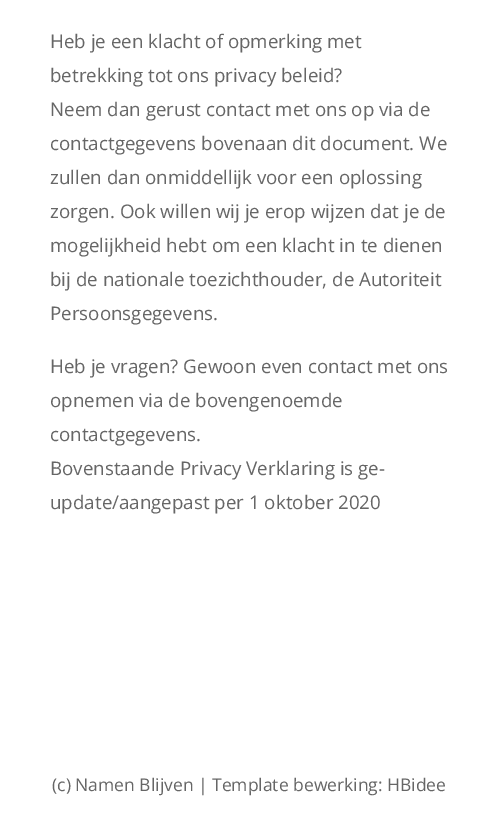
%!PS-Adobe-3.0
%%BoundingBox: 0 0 498 820
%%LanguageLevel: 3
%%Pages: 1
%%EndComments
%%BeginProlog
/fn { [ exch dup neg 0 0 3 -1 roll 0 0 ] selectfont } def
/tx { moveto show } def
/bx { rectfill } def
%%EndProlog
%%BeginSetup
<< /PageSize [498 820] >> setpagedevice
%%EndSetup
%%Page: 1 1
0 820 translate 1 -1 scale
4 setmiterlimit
1 setgray
0 0 498 820 bx
/OpenSans-Regular 18.75 fn
0.4 setgray
(Heb je een klacht of opmerking met) 50 48 tx
(betrekking tot ons privacy beleid?) 50 82 tx
(Neem dan gerust contact met ons op via de) 50 116 tx
(contactgegevens bovenaan dit document. We) 50 150 tx
(zullen dan onmiddellijk voor een oplossing) 50 184 tx
(zorgen. Ook willen wij je erop wijzen dat je de) 50 218 tx
(mogelijkheid hebt om een klacht in te dienen) 50 252 tx
(bij de nationale toezichthouder, de Autoriteit) 50 286 tx
(Persoonsgegevens.) 50 320 tx
(Heb je vragen? Gewoon even contact met ons) 50 373 tx
(opnemen via de bovengenoemde) 50 407 tx
(contactgegevens.) 50 441 tx
(Bovenstaande Privacy Verklaring is ge-) 50 475 tx
(update/aangepast per 1 oktober 2020) 50 509 tx
/OpenSans-Regular 17.5 fn
(\(c\) Namen Blijven | Template bewerking: HBidee) 52 791 tx
showpage
%%EOF
